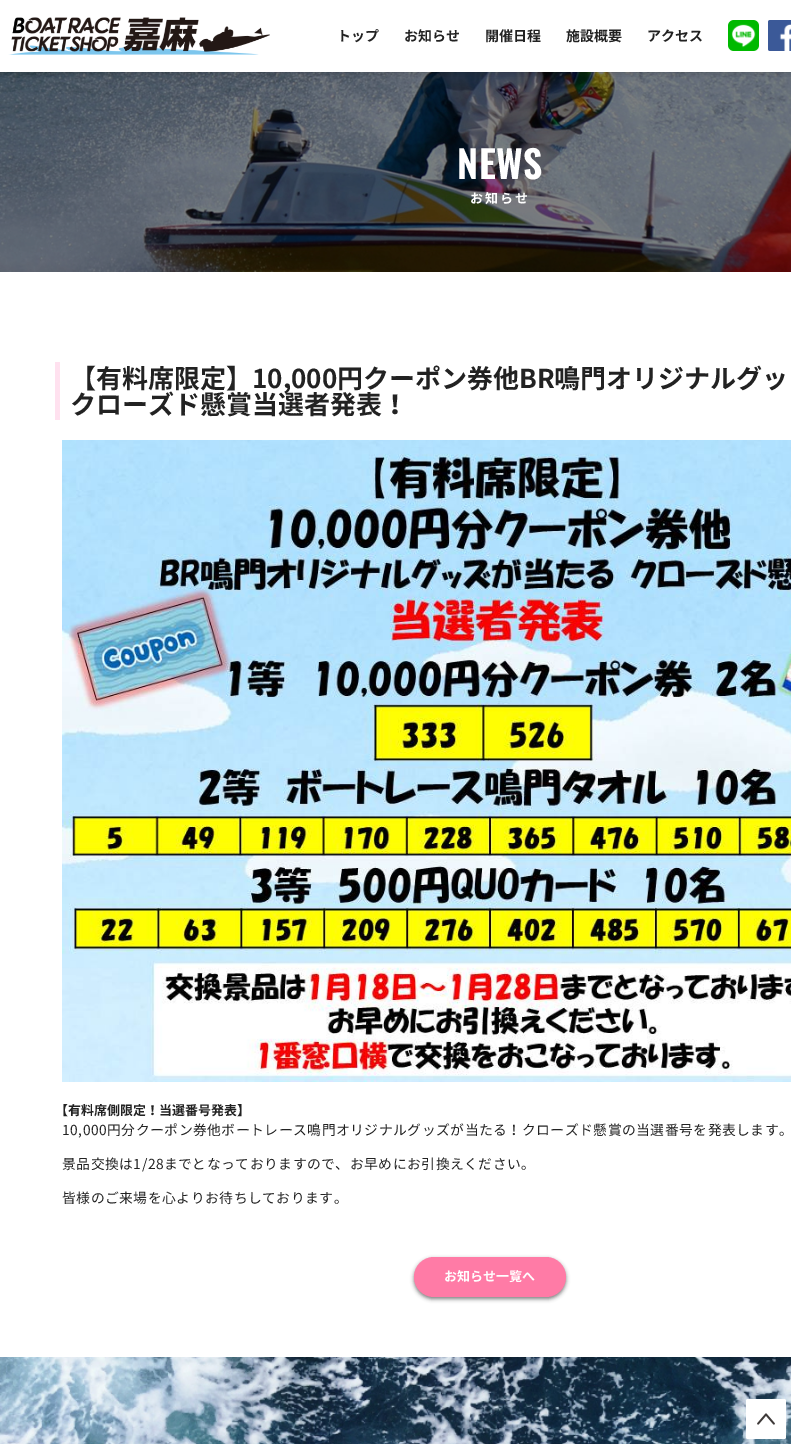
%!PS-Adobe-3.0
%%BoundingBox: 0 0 791 1444
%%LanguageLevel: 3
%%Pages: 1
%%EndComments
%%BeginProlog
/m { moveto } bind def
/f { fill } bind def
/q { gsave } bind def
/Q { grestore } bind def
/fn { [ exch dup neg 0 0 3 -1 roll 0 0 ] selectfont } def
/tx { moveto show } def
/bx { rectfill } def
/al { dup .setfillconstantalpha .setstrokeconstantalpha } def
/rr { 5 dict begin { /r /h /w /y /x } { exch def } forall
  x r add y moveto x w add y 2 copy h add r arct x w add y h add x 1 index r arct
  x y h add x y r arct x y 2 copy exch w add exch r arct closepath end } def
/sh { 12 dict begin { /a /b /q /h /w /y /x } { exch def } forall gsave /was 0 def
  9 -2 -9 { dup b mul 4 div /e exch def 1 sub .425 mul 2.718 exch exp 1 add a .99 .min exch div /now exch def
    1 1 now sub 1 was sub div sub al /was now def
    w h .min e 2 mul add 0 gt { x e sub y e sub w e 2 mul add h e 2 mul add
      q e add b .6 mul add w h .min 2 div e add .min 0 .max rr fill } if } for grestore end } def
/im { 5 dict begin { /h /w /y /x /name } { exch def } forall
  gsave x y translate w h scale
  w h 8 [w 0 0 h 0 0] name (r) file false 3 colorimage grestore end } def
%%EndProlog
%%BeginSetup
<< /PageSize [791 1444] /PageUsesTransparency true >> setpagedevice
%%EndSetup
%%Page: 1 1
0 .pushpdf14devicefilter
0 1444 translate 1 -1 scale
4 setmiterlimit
1 setgray
0 0 791 1444 bx
(image3.raw) 0 72 791 200 im
q
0 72 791 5 rectclip
0 setgray
0 0 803 72 0 4 0.2 sh
Q
(image0.raw) 8 17 262 38 im
/NotoSansCJKJP-Bold 14 fn
0.133 setgray
(トップ) 337 41 tx
(お知らせ) 404 41 tx
(開催日程) 485 41 tx
(施設概要) 566 41 tx
(アクセス) 647 41 tx
(image1.raw) 728 20 31 31 im
(image2.raw) 768 20 23 31 im
/Oswald-SemiBold 38 fn
1 setgray
457 179 m 0.5 0 (NEWS) ashow
/NotoSansCJKJP-Bold 13 fn
470 203 m 2 0 (お知らせ) ashow
1 0.882 0.937 setrgbcolor
55 362 5 58 bx
/NotoSansCJKJP-Bold 26 fn
0.133 setgray
(【有料席限定】10,000円クーポン券他BR鳴門オリジナルグッ) 70 388 tx
(クローズド懸賞当選者発表！) 70 414 tx
(image4.raw) 62 440 729 642 im
/NotoSansCJKJP-Bold 13 fn
(【有料席側限定！当選番号発表】) 55 1115 tx
/NotoSansCJKJP-Regular 13.8 fn
62 1135 m 0.5 0 (10,000円分クーポン券他ボートレース鳴門オリジナルグッズが当たる！クローズド懸賞の当選番号を発表します。) ashow
62 1169 m 0.5 0 (景品交換は1/28までとなっておりますので、お早めにお引換えください。) ashow
62 1203 m 0.5 0 (皆様のご来場を心よりお待ちしております。) ashow
0 setgray
414 1259 152 40 20 2 0.5 sh
1 0.482 0.651 setrgbcolor
414 1257 152 40 20 rr f
/NotoSansCJKJP-Bold 13 fn
1 setgray
(お知らせ一覧へ) 444 1281 tx
(image5.raw) 0 1357 791 87 im
746 1399 40 40 2 rr f
(image6.raw) 757 1413 18 12 im
.poppdf14devicefilter showpage
%%EOF
